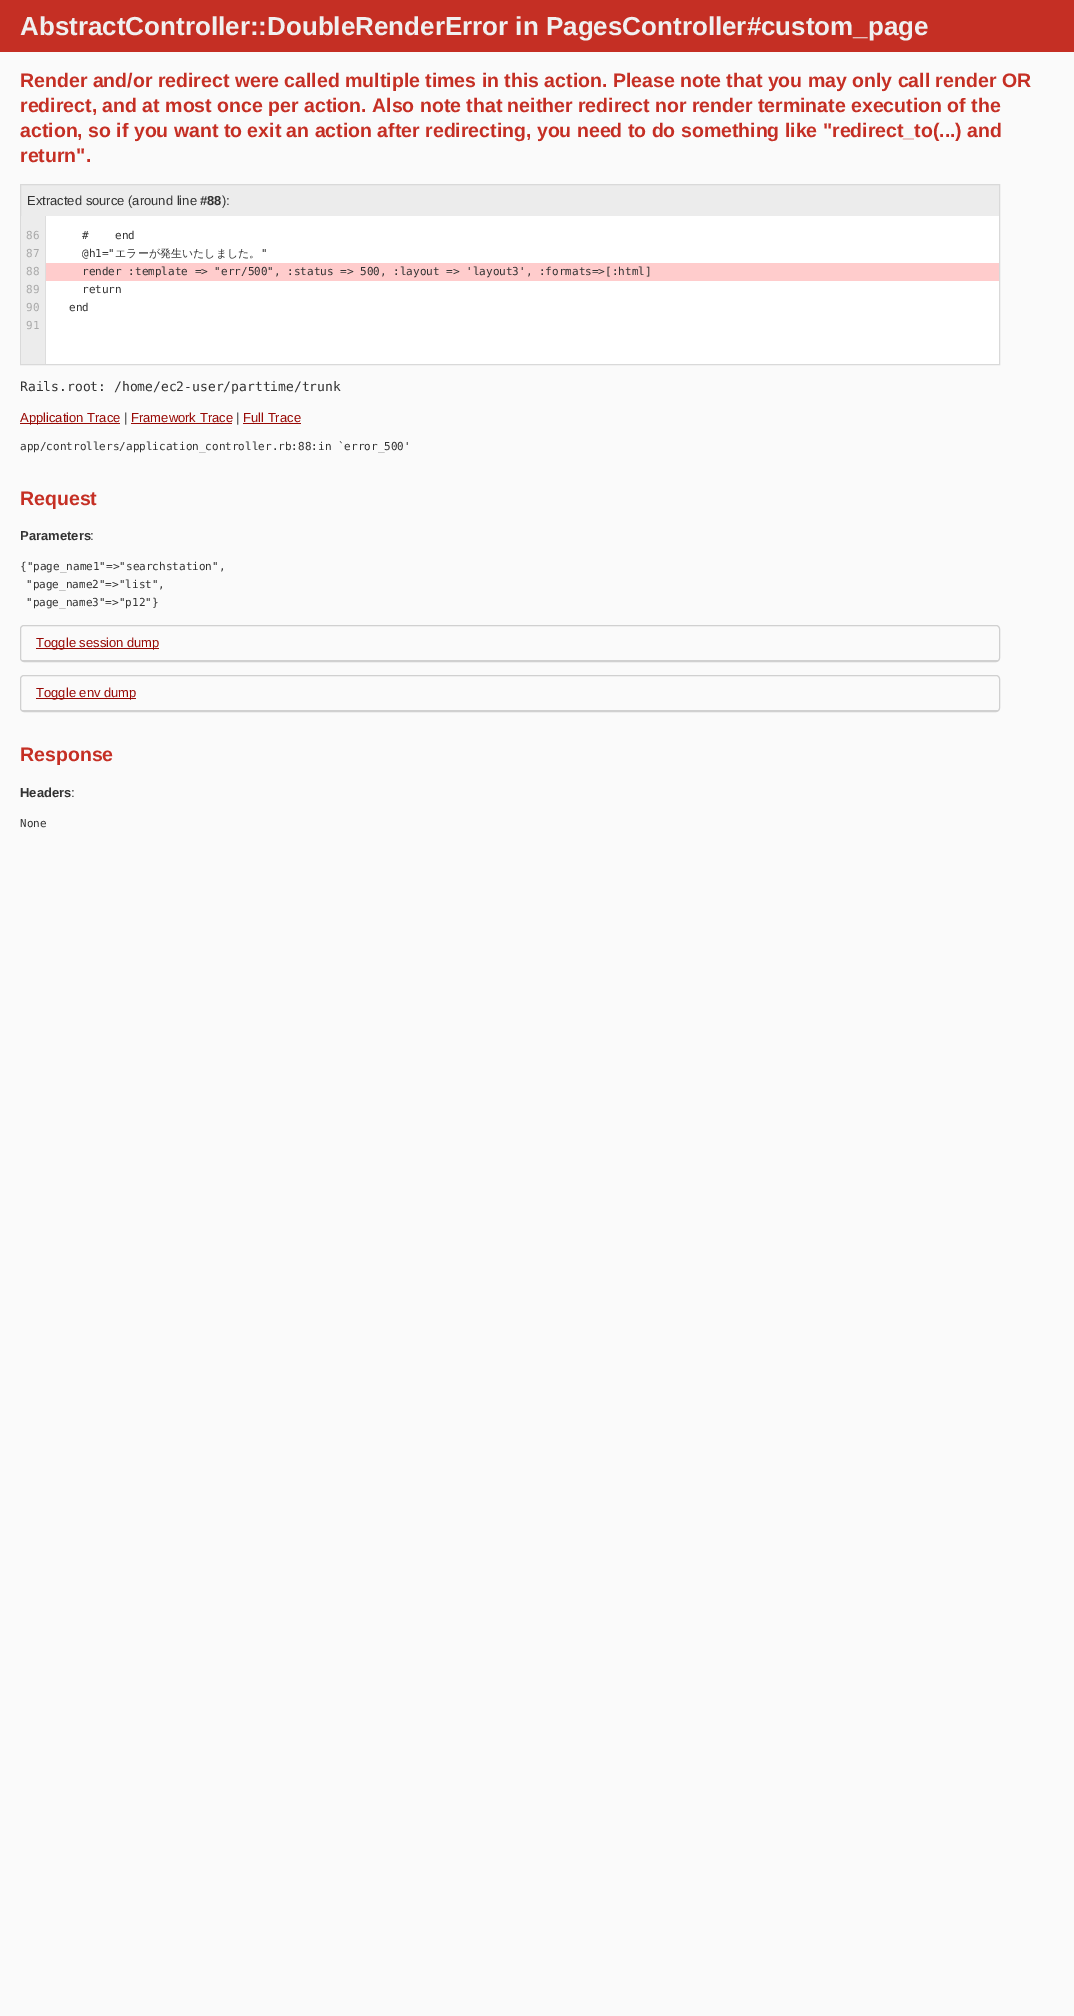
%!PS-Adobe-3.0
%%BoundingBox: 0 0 1074 2016
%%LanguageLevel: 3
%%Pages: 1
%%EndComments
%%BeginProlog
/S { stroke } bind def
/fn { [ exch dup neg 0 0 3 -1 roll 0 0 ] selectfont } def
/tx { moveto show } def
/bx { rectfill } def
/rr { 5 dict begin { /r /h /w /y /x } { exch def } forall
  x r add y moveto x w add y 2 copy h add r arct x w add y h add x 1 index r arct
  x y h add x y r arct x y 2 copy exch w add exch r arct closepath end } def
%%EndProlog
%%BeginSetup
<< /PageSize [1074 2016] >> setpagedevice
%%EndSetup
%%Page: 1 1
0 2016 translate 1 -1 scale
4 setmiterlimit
0.98 setgray
0 0 1074 2016 bx
0.773 0.184 0.141 setrgbcolor
0 0 1074 52 bx
/LiberationSans-Bold 26 fn
0.941 setgray
(AbstractController::DoubleRenderError in PagesController#custom_page) 20 35 tx
/LiberationSans-Bold 19.5 fn
0.773 0.184 0.141 setrgbcolor
(Render and/or redirect were called multiple times in this action. Please note that you may only call render OR) 20 87 tx
(redirect, and at most once per action. Also note that neither redirect nor render terminate execution of the) 20 112 tx
(action, so if you want to exit an action after redirecting, you need to do something like "redirect_to\(...\) and) 20 137 tx
(return".) 20 162 tx
0.925 setgray
21 185 978 31 bx
0.851 setgray
20.5 184.5 979 180 rectstroke
/LiberationSans-Regular 13 fn
0.2 setgray
(Extracted source \(around line) 27 205 tx
/LiberationSans-Bold 13 fn
(#88) 200 205 tx
/LiberationSans-Regular 13 fn
(\):) 222 205 tx
1 setgray
46 216 953 148 bx
0.925 setgray
21 216 24 148 bx
0.867 setgray
45 216 1 148 bx
/DejaVuSansMono-Regular 11 fn
0.667 setgray
(86) 26 239 tx
(87) 26 257 tx
(88) 26 275 tx
(89) 26 293 tx
(90) 26 311 tx
(91) 26 329 tx
0.2 setgray
(#    end) 82 239 tx
(@h1=") 82 257 tx
/WenQuanYiZenHei-Medium 11 fn
(エラーが発生いたしました。) 115 257 tx
/DejaVuSansMono-Regular 11 fn
(") 261 257 tx
1 0.8 0.8 setrgbcolor
46 263 953 18 bx
0.2 setgray
(render :template => "err/500", :status => 500, :layout => 'layout3', :formats=>[:html]) 82 275 tx
(return) 82 293 tx
(end) 69 311 tx
/DejaVuSansMono-Regular 13 fn
(Rails.root: /home/ec2-user/parttime/trunk) 20 391 tx
0.596 0.035 0.02 setrgbcolor
20 423 100 1 bx
/LiberationSans-Regular 13 fn
(Application Trace) 20 422 tx
0.2 setgray
(|) 124 422 tx
0.596 0.035 0.02 setrgbcolor
(Framework Trace) 131 422 tx
131 423 101 1 bx
0.2 setgray
(|) 236 422 tx
0.596 0.035 0.02 setrgbcolor
(Full Trace) 243 422 tx
243 423 58 1 bx
/DejaVuSansMono-Regular 11 fn
0.2 setgray
(app/controllers/application_controller.rb:88:in `error_500') 20 450 tx
/LiberationSans-Bold 19.5 fn
0.773 0.184 0.141 setrgbcolor
(Request) 20 505 tx
/LiberationSans-Bold 13 fn
0.2 setgray
(Parameters) 20 540 tx
/LiberationSans-Regular 13 fn
(:) 90 540 tx
/DejaVuSansMono-Regular 11 fn
({"page_name1"=>"searchstation",) 20 570 tx
("page_name2"=>"list",) 26 588 tx
("page_name3"=>"p12"}) 26 606 tx
0.816 setgray
20.5 625.5 979 36 3.5 rr S
21 660 978 1 bx
0.596 0.035 0.02 setrgbcolor
36 648 123 1 bx
/LiberationSans-Regular 13 fn
(Toggle session dump) 36 647 tx
0.816 setgray
20.5 675.5 979 36 3.5 rr S
21 710 978 1 bx
0.596 0.035 0.02 setrgbcolor
36 698 100 1 bx
(Toggle env dump) 36 697 tx
/LiberationSans-Bold 19.5 fn
0.773 0.184 0.141 setrgbcolor
(Response) 20 761 tx
/LiberationSans-Bold 13 fn
0.2 setgray
(Headers) 20 797 tx
/LiberationSans-Regular 13 fn
(:) 71 797 tx
/DejaVuSansMono-Regular 11 fn
(None) 20 827 tx
showpage
%%EOF
